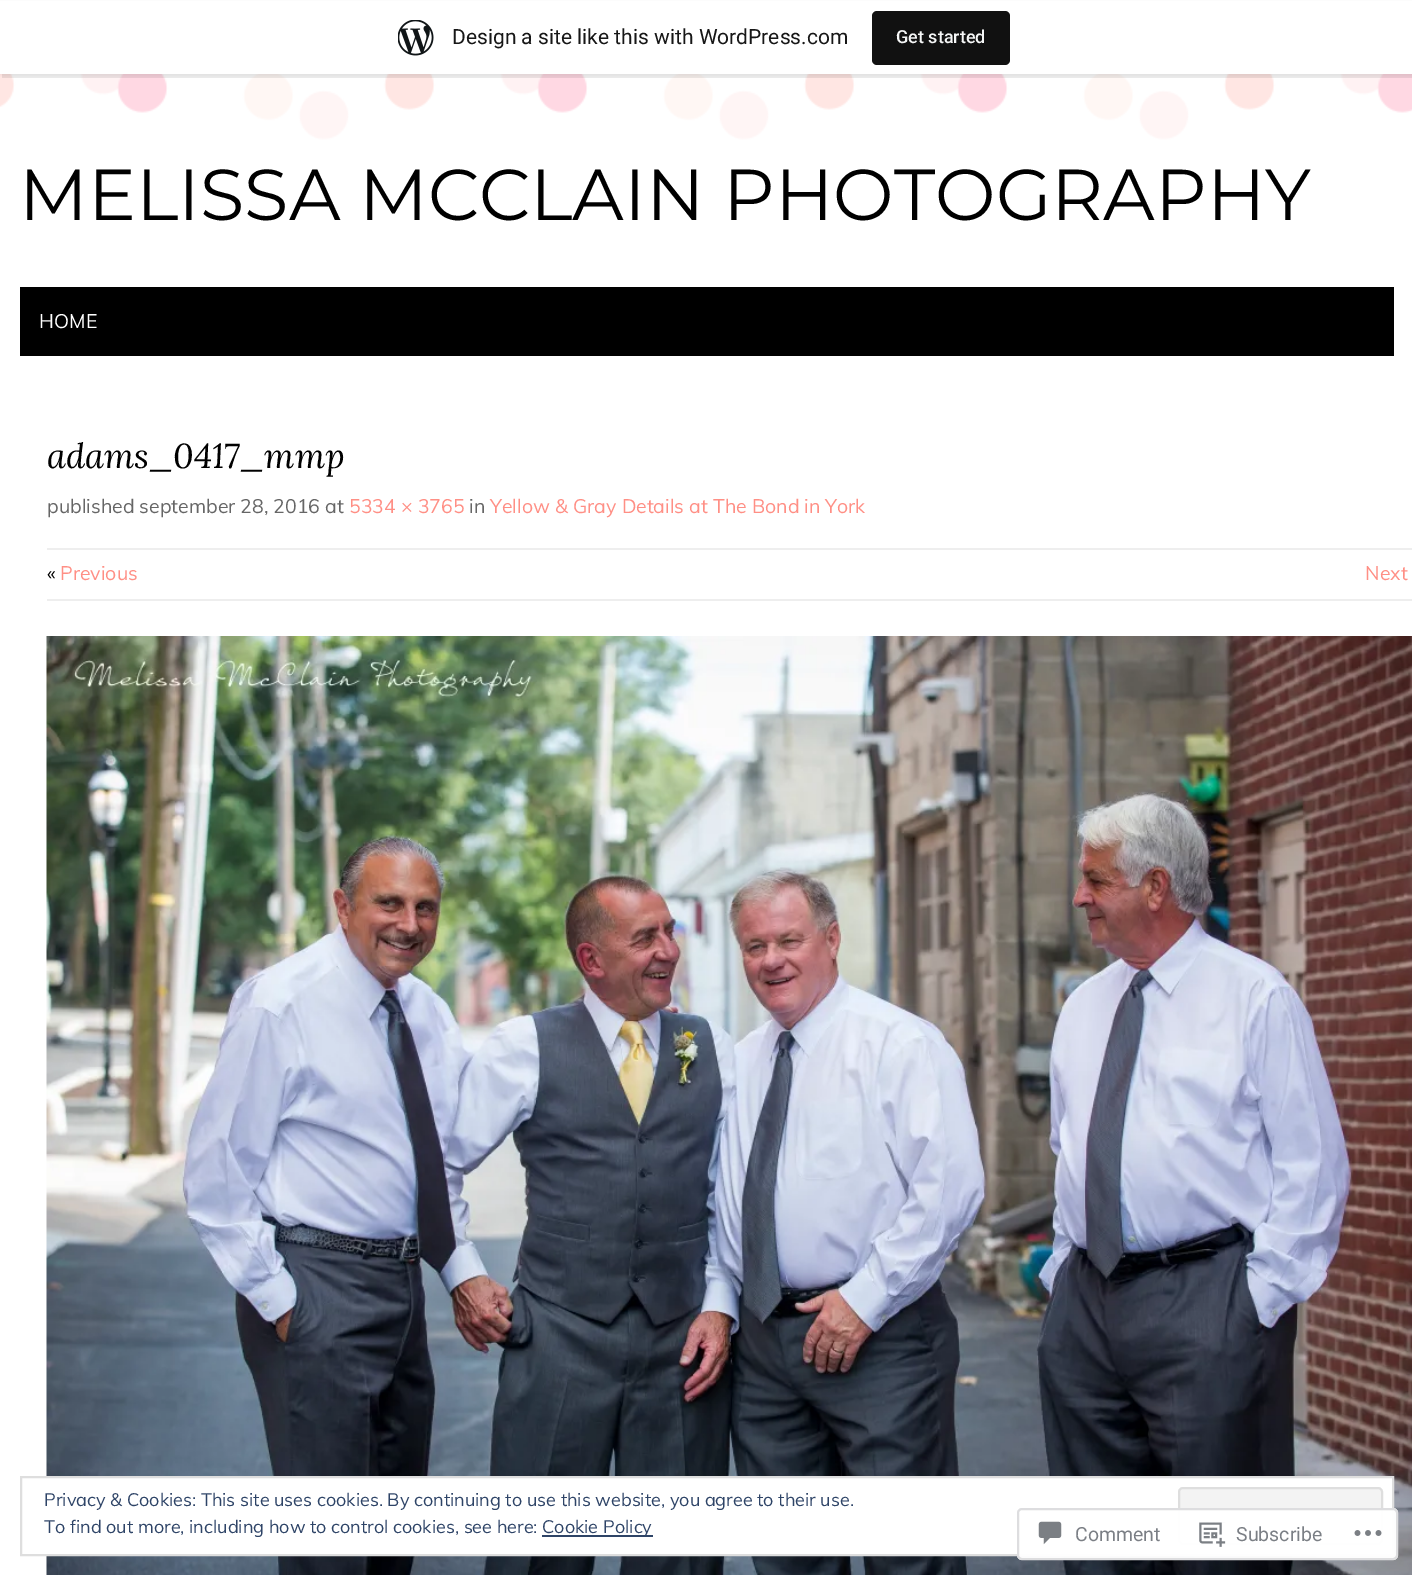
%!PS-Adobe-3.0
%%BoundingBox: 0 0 1412 1575
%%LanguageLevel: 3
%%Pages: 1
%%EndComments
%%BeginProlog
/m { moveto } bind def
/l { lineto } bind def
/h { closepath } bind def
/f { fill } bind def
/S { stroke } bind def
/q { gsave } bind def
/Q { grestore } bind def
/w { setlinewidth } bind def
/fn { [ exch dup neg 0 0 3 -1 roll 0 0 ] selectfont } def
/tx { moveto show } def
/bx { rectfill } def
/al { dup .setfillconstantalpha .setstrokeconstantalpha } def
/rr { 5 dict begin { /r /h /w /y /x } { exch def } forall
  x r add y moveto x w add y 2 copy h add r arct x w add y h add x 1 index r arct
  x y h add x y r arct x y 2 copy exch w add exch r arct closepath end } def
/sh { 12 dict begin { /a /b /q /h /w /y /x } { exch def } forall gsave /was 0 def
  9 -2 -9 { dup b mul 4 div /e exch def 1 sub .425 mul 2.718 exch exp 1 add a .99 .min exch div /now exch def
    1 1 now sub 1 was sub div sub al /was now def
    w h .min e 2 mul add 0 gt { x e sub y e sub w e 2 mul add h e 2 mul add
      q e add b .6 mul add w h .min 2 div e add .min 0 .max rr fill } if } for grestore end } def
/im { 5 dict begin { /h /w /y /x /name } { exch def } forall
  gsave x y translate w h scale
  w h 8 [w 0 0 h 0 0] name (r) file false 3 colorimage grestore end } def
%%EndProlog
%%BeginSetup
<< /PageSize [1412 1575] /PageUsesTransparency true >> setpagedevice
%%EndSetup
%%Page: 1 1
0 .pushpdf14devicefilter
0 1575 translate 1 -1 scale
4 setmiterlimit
1 setgray
0 0 1412 1575 bx
(image1.raw) 0 74 1412 66 im
0 setgray
0 2 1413 73 0 1.5 0.05 sh
0.08 al
2 74 m 2 78 l 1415 78 l 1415 5 l 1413 5 l 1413 74 l h f
1 al
1 setgray
0 1 1412 73 bx
(image0.raw) 398 20 36 36 im
/Roboto-Regular 21 fn
0.09 setgray
(Design a site like this with WordPress.com) 452 44 tx
0.067 setgray
872 11 138 54 5 rr f
/Roboto-Medium 18 fn
0.965 0.969 0.969 setrgbcolor
(Get started) 896 43 tx
/Montserrat-Regular 72 fn
0 setgray
(MELISSA MCCLAIN PHOTOGRAPHY) 19 220 tx
20 287 1374 69 bx
/Muli-Regular 19.5 fn
1 setgray
(HOME) 39 328 tx
/Lora-Italic 34.5 fn
0 setgray
(adams_0417_mmp) 47 468 tx
/Muli-Regular 19.5 fn
0.4 setgray
(published september 28, 2016 at) 47 513 tx
1 0.561 0.522 setrgbcolor
(5334 × 3765) 349 513 tx
0.4 setgray
(in) 469 513 tx
1 0.561 0.522 setrgbcolor
(Yellow & Gray Details at The Bond in York) 490 513 tx
0.933 setgray
47 548 1365 2 bx
47 599 1365 2 bx
0 setgray
(«) 47 580 tx
1 0.561 0.522 setrgbcolor
(Previous) 60 580 tx
(Next) 1365 580 tx
(image2.raw) 46 636 1366 939 im
1 setgray
46 1478 1346 76 bx
0.871 setgray
2 w
21 1477 1372 78 rectstroke
/Muli-Regular 18 fn
0.18 0.267 0.404 setrgbcolor
(Privacy & Cookies: This site uses cookies. By continuing to use this website, you agree to their use.) 44 1506 tx
0.953 setgray
1179 1488 203 56 4 rr q f Q
0.871 setgray
S
0.18 0.267 0.404 setrgbcolor
(To find out more, including how to control cookies, see here:) 44 1533 tx
542 1535 111 2 bx
(Cookie Policy) 542 1533 tx
0.98 al
1 setgray
1017 1508 381 52 5 rr f
0.863 0.863 0.871 setrgbcolor
1018 1509 379 50 4 rr S
1 al
(image3.raw) 1038 1521 24 24 im
/Roboto-Regular 19.5 fn
0.482 0.498 0.522 setrgbcolor
(Comment) 1075 1541 tx
(image4.raw) 1199 1522 27 25 im
(Subscribe) 1236 1541 tx
(image5.raw) 1354 1530 28 6 im
.poppdf14devicefilter showpage
%%EOF
